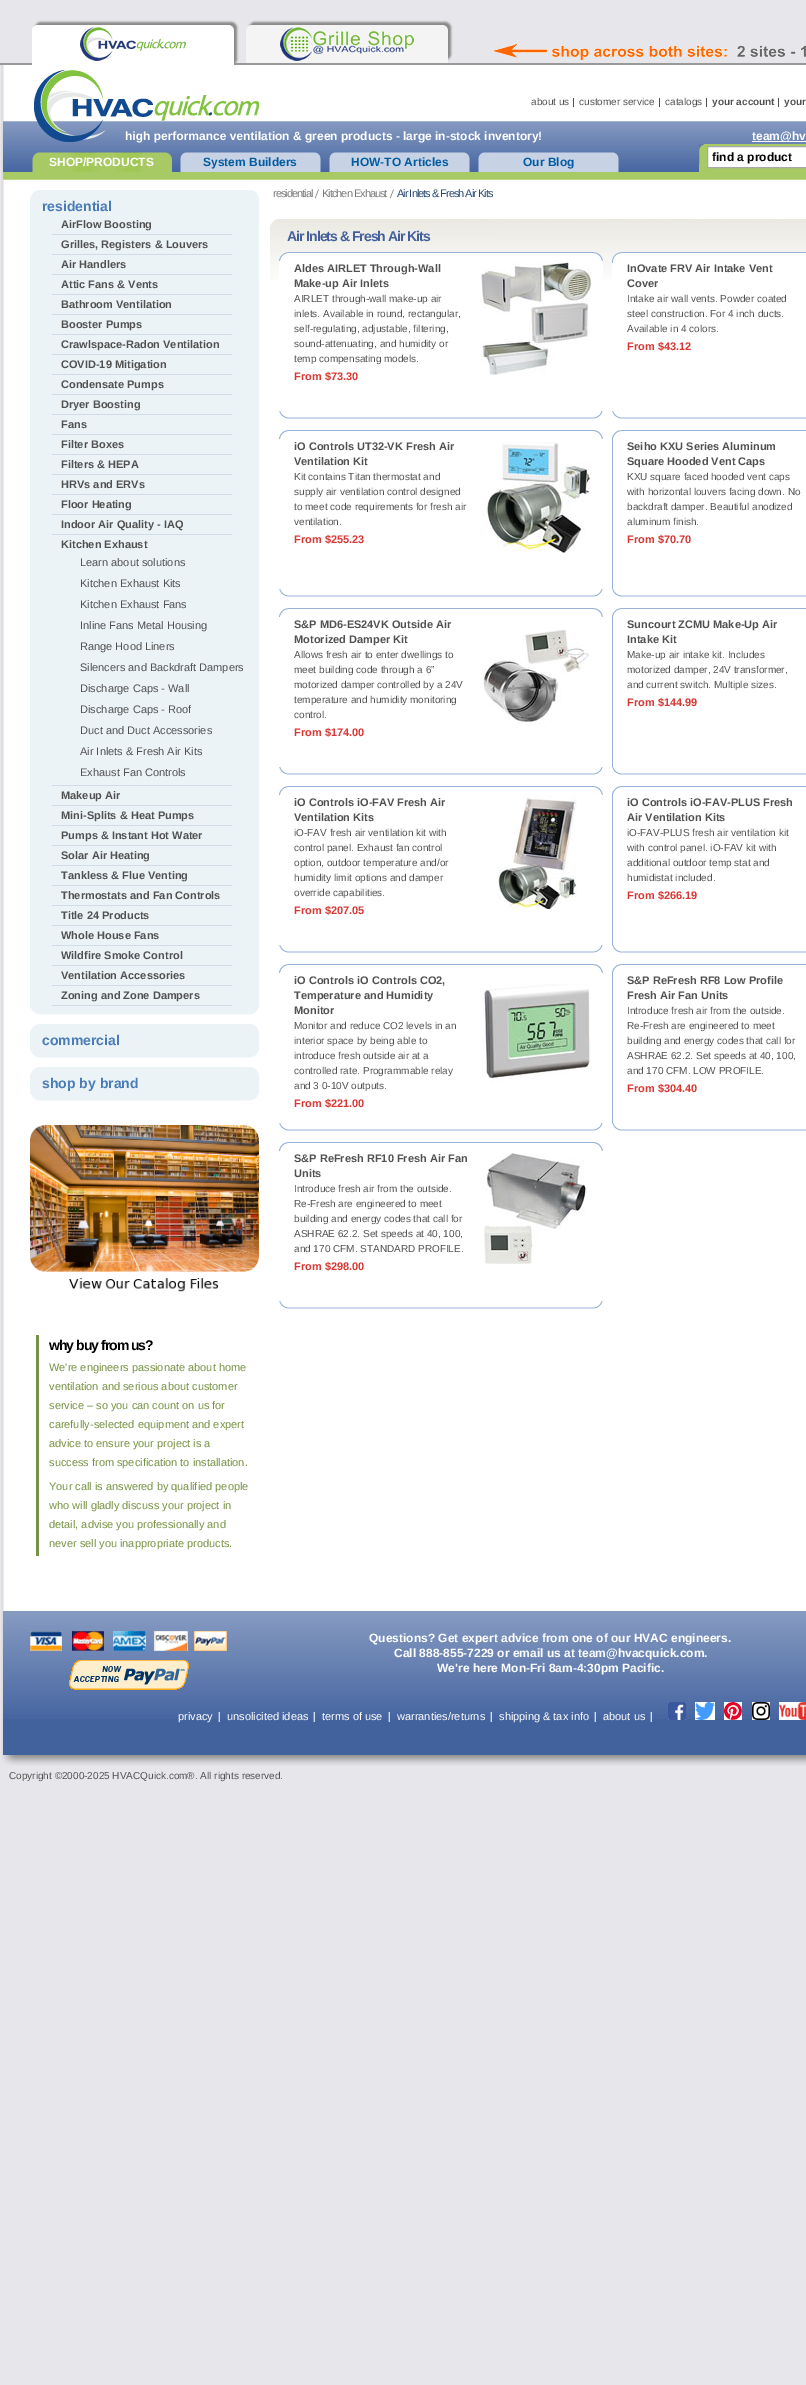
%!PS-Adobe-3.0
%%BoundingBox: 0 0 806 2385
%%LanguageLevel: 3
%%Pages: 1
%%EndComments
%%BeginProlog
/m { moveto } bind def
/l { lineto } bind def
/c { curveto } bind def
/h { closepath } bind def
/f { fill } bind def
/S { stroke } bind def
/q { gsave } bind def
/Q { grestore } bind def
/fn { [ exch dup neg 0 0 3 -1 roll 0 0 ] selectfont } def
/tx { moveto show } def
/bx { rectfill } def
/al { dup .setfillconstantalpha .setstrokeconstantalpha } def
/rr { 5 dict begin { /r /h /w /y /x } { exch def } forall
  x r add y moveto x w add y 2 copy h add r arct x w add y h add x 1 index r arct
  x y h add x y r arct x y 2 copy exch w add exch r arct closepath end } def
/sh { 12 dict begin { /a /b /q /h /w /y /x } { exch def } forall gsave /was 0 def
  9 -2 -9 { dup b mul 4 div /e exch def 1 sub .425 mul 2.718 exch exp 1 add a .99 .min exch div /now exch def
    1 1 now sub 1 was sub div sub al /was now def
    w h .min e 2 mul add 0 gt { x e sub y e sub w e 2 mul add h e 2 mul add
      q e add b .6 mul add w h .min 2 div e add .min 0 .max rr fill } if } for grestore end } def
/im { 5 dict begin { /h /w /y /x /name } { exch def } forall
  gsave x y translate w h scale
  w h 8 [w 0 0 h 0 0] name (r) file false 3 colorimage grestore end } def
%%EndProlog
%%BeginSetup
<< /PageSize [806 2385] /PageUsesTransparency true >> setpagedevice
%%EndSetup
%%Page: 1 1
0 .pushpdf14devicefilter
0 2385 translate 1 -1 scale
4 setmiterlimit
0.906 0.906 0.922 setrgbcolor
0 0 806 2385 bx
0.6 setgray
0 63 806 2 bx
0.533 setgray
35 22 202 43 6 1 1 sh
1 setgray
38 25 m 228 25 l 231.5 25 234 27.5 234 31 c 234 68 l 32 68 l 32 31 l 32 27.5 34.5 25 38 25 c h f
(image0.raw) 80 27 106 34 im
0.533 setgray
249 22 202 38 6 1 1 sh
0.957 setgray
252 25 m 442 25 l 445.5 25 448 27.5 448 31 c 448 63 l 246 63 l 246 31 l 246 27.5 248.5 25 252 25 c h f
(image1.raw) 280 27 134 34 im
(image2.raw) 1 65 805 1690 im
(image3.raw) 493 44 313 16 im
(image5.raw) 3 121 803 59 im
/LiberationSans-Bold 12 fn
1 setgray
(high performance ventilation & green products - large in-stock inventory!) 125 140 tx
(image4.raw) 34 70 225 72 im
/LiberationSans-Regular 10 fn
0.318 setgray
(about us) 531 105 tx
(customer service) 579 105 tx
573 98 1 9 bx
(catalogs) 665 105 tx
659 98 1 9 bx
/LiberationSans-Bold 10 fn
(your account) 712 105 tx
706 98 1 9 bx
(your) 784 105 tx
778 98 1 9 bx
1 setgray
752 141 54 1 bx
/LiberationSans-Bold 12 fn
(team@hv) 752 140 tx
(image6.raw) 32 152 140 20 im
(SHOP/PRODUCTS) 49 166 tx
(image7.raw) 180 152 141 20 im
0.008 0.361 0.635 setrgbcolor
(System Builders) 203 166 tx
(image7.raw) 329 152 141 20 im
(HOW-TO Articles) 351 166 tx
(image7.raw) 478 152 141 20 im
(Our Blog) 523 166 tx
0.659 0.792 0.392 setrgbcolor
699 144 107 28 bx
(image8.raw) 699 144 5 21 im
1 setgray
707.5 146.5 m 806.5 146.5 l 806.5 167.5 l 707.5 167.5 l h q f Q
0.663 setgray
S
0 setgray
(find a product) 712 161 tx
0.922 0.953 0.969 setrgbcolor
30 197 229 811 bx
(image9.raw) 30 190 229 7 im
(image10.raw) 30 1008 229 7 im
/LiberationSans-Bold 14 fn
0.286 0.486 0.714 setrgbcolor
(residential) 42 211 tx
0.82 0.863 0.91 setrgbcolor
52 234 180 1 bx
/LiberationSans-Bold 11 fn
0.318 setgray
(AirFlow Boosting) 61 228 tx
0.82 0.863 0.91 setrgbcolor
52 254 180 1 bx
0.318 setgray
(Grilles, Registers & Louvers) 61 248 tx
0.82 0.863 0.91 setrgbcolor
52 274 180 1 bx
0.318 setgray
(Air Handlers) 61 268 tx
0.82 0.863 0.91 setrgbcolor
52 294 180 1 bx
0.318 setgray
(Attic Fans & Vents) 61 288 tx
0.82 0.863 0.91 setrgbcolor
52 314 180 1 bx
0.318 setgray
(Bathroom Ventilation) 61 308 tx
0.82 0.863 0.91 setrgbcolor
52 334 180 1 bx
0.318 setgray
(Booster Pumps) 61 328 tx
0.82 0.863 0.91 setrgbcolor
52 354 180 1 bx
0.318 setgray
(Crawlspace-Radon Ventilation) 61 348 tx
0.82 0.863 0.91 setrgbcolor
52 374 180 1 bx
0.318 setgray
(COVID-19 Mitigation) 61 368 tx
0.82 0.863 0.91 setrgbcolor
52 394 180 1 bx
0.318 setgray
(Condensate Pumps) 61 388 tx
0.82 0.863 0.91 setrgbcolor
52 414 180 1 bx
0.318 setgray
(Dryer Boosting) 61 408 tx
0.82 0.863 0.91 setrgbcolor
52 434 180 1 bx
0.318 setgray
(Fans) 61 428 tx
0.82 0.863 0.91 setrgbcolor
52 454 180 1 bx
0.318 setgray
(Filter Boxes) 61 448 tx
0.82 0.863 0.91 setrgbcolor
52 474 180 1 bx
0.318 setgray
(Filters & HEPA) 61 468 tx
0.82 0.863 0.91 setrgbcolor
52 494 180 1 bx
0.318 setgray
(HRVs and ERVs) 61 488 tx
0.82 0.863 0.91 setrgbcolor
52 514 180 1 bx
0.318 setgray
(Floor Heating) 61 508 tx
0.82 0.863 0.91 setrgbcolor
52 534 180 1 bx
0.318 setgray
(Indoor Air Quality - IAQ) 61 528 tx
0.82 0.863 0.91 setrgbcolor
52 785 180 1 bx
0.318 setgray
(Kitchen Exhaust) 61 548 tx
/LiberationSans-Regular 11 fn
(Learn about solutions) 80 566 tx
(Kitchen Exhaust Kits) 80 587 tx
(Kitchen Exhaust Fans) 80 608 tx
(Inline Fans Metal Housing) 80 629 tx
(Range Hood Liners) 80 650 tx
(Silencers and Backdraft Dampers) 80 671 tx
(Discharge Caps - Wall) 80 692 tx
(Discharge Caps - Roof) 80 713 tx
(Duct and Duct Accessories) 80 734 tx
(Air Inlets & Fresh Air Kits) 80 755 tx
(Exhaust Fan Controls) 80 776 tx
0.82 0.863 0.91 setrgbcolor
52 805 180 1 bx
/LiberationSans-Bold 11 fn
0.318 setgray
(Makeup Air) 61 799 tx
0.82 0.863 0.91 setrgbcolor
52 825 180 1 bx
0.318 setgray
(Mini-Splits & Heat Pumps) 61 819 tx
0.82 0.863 0.91 setrgbcolor
52 845 180 1 bx
0.318 setgray
(Pumps & Instant Hot Water) 61 839 tx
0.82 0.863 0.91 setrgbcolor
52 865 180 1 bx
0.318 setgray
(Solar Air Heating) 61 859 tx
0.82 0.863 0.91 setrgbcolor
52 885 180 1 bx
0.318 setgray
(Tankless & Flue Venting) 61 879 tx
0.82 0.863 0.91 setrgbcolor
52 905 180 1 bx
0.318 setgray
(Thermostats and Fan Controls) 61 899 tx
0.82 0.863 0.91 setrgbcolor
52 925 180 1 bx
0.318 setgray
(Title 24 Products) 61 919 tx
0.82 0.863 0.91 setrgbcolor
52 945 180 1 bx
0.318 setgray
(Whole House Fans) 61 939 tx
0.82 0.863 0.91 setrgbcolor
52 965 180 1 bx
0.318 setgray
(Wildfire Smoke Control) 61 959 tx
0.82 0.863 0.91 setrgbcolor
52 985 180 1 bx
0.318 setgray
(Ventilation Accessories) 61 979 tx
0.82 0.863 0.91 setrgbcolor
52 1005 180 1 bx
0.318 setgray
(Zoning and Zone Dampers) 61 999 tx
0.922 0.953 0.969 setrgbcolor
30 1031 229 20 bx
(image9.raw) 30 1024 229 7 im
(image10.raw) 30 1051 229 7 im
/LiberationSans-Bold 14 fn
0.286 0.486 0.714 setrgbcolor
(commercial) 42 1045 tx
0.922 0.953 0.969 setrgbcolor
30 1074 229 20 bx
(image9.raw) 30 1067 229 7 im
(image10.raw) 30 1094 229 7 im
0.286 0.486 0.714 setrgbcolor
(shop by brand) 42 1088 tx
(image11.raw) 30 1125 229 167 im
0.467 0.569 0.278 setrgbcolor
36 1335 3 221 bx
0 setgray
49 1350 m -1 0 (why buy from us?) ashow
/LiberationSans-Regular 11 fn
0.467 0.569 0.259 setrgbcolor
(We're engineers passionate about home) 49 1371 tx
(ventilation and serious about customer) 49 1390 tx
(service – so you can count on us for) 49 1409 tx
(carefully-selected equipment and expert) 49 1428 tx
(advice to ensure your project is a) 49 1447 tx
(success from specification to installation.) 49 1466 tx
(Your call is answered by qualified people) 49 1490 tx
(who will gladly discuss your project in) 49 1509 tx
(detail, advise you professionally and) 49 1528 tx
(never sell you inappropriate products.) 49 1547 tx
0.475 setgray
273 197 m -1 0 (residential) ashow
(image12.raw) 314 189 5 10 im
322 197 m -1 0 (Kitchen Exhaust) ashow
(image12.raw) 389 189 5 10 im
0.161 0.286 0.439 setrgbcolor
397 197 m -1 0 (Air Inlets & Fresh Air Kits) ashow
(image13.raw) 270 219 536 61 im
/LiberationSans-Bold 14 fn
0.267 0.376 0.612 setrgbcolor
287 241 m -1 0 (Air Inlets & Fresh Air Kits) ashow
(image14.raw) 279 411 324 8 im
(image15.raw) 279 252 324 9 im
1 setgray
279 261 324 19 bx
/LiberationSans-Bold 11 fn
0.318 setgray
(Aldes AIRLET Through-Wall) 294 272 tx
(Make-up Air Inlets) 294 287 tx
/LiberationSans-Regular 10 fn
(AIRLET through-wall make-up air) 294 302 tx
(inlets. Available in round, rectangular,) 294 317 tx
(self-regulating, adjustable, filtering,) 294 332 tx
(sound-attenuating, and humidity or) 294 347 tx
(temp compensating models.) 294 362 tx
/LiberationSans-Bold 11 fn
0.847 0.22 0.204 setrgbcolor
(From $73.30) 294 380 tx
(image16.raw) 481 261 110 114 im
(image17.raw) 612 411 194 8 im
(image18.raw) 612 252 194 11 im
1 setgray
612 263 194 17 bx
0.318 setgray
(InOvate FRV Air Intake Vent) 627 272 tx
(Cover) 627 287 tx
/LiberationSans-Regular 10 fn
(Intake air wall vents. Powder coated) 627 302 tx
(steel construction. For 4 inch ducts.) 627 317 tx
(Available in 4 colors.) 627 332 tx
/LiberationSans-Bold 11 fn
0.847 0.22 0.204 setrgbcolor
(From $43.12) 627 350 tx
(image14.raw) 279 589 324 8 im
(image19.raw) 279 430 324 9 im
0.318 setgray
(iO Controls UT32-VK Fresh Air) 294 450 tx
(Ventilation Kit) 294 465 tx
/LiberationSans-Regular 10 fn
(Kit contains Titan thermostat and) 294 480 tx
(supply air ventilation control designed) 294 495 tx
(to meet code requirements for fresh air) 294 510 tx
(ventilation.) 294 525 tx
/LiberationSans-Bold 11 fn
0.847 0.22 0.204 setrgbcolor
(From $255.23) 294 543 tx
(image20.raw) 481 442 110 111 im
(image17.raw) 612 589 194 8 im
(image21.raw) 612 430 194 11 im
0.596 0.694 0.843 setrgbcolor
612 441 1 148 bx
0.318 setgray
(Seiho KXU Series Aluminum) 627 450 tx
(Square Hooded Vent Caps) 627 465 tx
/LiberationSans-Regular 10 fn
(KXU square faced hooded vent caps) 627 480 tx
(with horizontal louvers facing down. No) 627 495 tx
(backdraft damper. Beautiful anodized) 627 510 tx
(aluminum finish.) 627 525 tx
/LiberationSans-Bold 11 fn
0.847 0.22 0.204 setrgbcolor
(From $70.70) 627 543 tx
(image14.raw) 279 767 324 8 im
(image19.raw) 279 608 324 9 im
0.318 setgray
(S&P MD6-ES24VK Outside Air) 294 628 tx
(Motorized Damper Kit) 294 643 tx
/LiberationSans-Regular 10 fn
(Allows fresh air to enter dwellings to) 294 658 tx
(meet building code through a 6”) 294 673 tx
(motorized damper controlled by a 24V) 294 688 tx
(temperature and humidity monitoring) 294 703 tx
(control.) 294 718 tx
/LiberationSans-Bold 11 fn
0.847 0.22 0.204 setrgbcolor
(From $174.00) 294 736 tx
(image22.raw) 481 629 109 98 im
(image17.raw) 612 767 194 8 im
(image21.raw) 612 608 194 11 im
0.596 0.694 0.843 setrgbcolor
612 619 1 148 bx
0.318 setgray
(Suncourt ZCMU Make-Up Air) 627 628 tx
(Intake Kit) 627 643 tx
/LiberationSans-Regular 10 fn
(Make-up air intake kit. Includes) 627 658 tx
(motorized damper, 24V transformer,) 627 673 tx
(and current switch. Multiple sizes.) 627 688 tx
/LiberationSans-Bold 11 fn
0.847 0.22 0.204 setrgbcolor
(From $144.99) 627 706 tx
(image14.raw) 279 945 324 8 im
(image19.raw) 279 786 324 9 im
0.318 setgray
(iO Controls iO-FAV Fresh Air) 294 806 tx
(Ventilation Kits) 294 821 tx
/LiberationSans-Regular 10 fn
(iO-FAV fresh air ventilation kit with) 294 836 tx
(control panel. Exhaust fan control) 294 851 tx
(option, outdoor temperature and/or) 294 866 tx
(humidity limit options and damper) 294 881 tx
(override capabilities.) 294 896 tx
/LiberationSans-Bold 11 fn
0.847 0.22 0.204 setrgbcolor
(From $207.05) 294 914 tx
(image23.raw) 498 795 79 114 im
(image17.raw) 612 945 194 8 im
(image21.raw) 612 786 194 11 im
0.596 0.694 0.843 setrgbcolor
612 797 1 148 bx
0.318 setgray
(iO Controls iO-FAV-PLUS Fresh) 627 806 tx
(Air Ventilation Kits) 627 821 tx
/LiberationSans-Regular 10 fn
(iO-FAV-PLUS fresh air ventilation kit) 627 836 tx
(with control panel. iO-FAV kit with) 627 851 tx
(additional outdoor temp stat and) 627 866 tx
(humidistat included.) 627 881 tx
/LiberationSans-Bold 11 fn
0.847 0.22 0.204 setrgbcolor
(From $266.19) 627 899 tx
(image14.raw) 279 1123 324 8 im
(image19.raw) 279 964 324 9 im
0.318 setgray
(iO Controls iO Controls CO2,) 294 984 tx
(Temperature and Humidity) 294 999 tx
(Monitor) 294 1014 tx
/LiberationSans-Regular 10 fn
(Monitor and reduce CO2 levels in an) 294 1029 tx
(interior space by being able to) 294 1044 tx
(introduce fresh outside air at a) 294 1059 tx
(controlled rate. Programmable relay) 294 1074 tx
(and 3 0-10V outputs.) 294 1089 tx
/LiberationSans-Bold 11 fn
0.847 0.22 0.204 setrgbcolor
(From $221.00) 294 1107 tx
(image24.raw) 482 984 109 99 im
(image17.raw) 612 1123 194 8 im
(image21.raw) 612 964 194 11 im
0.596 0.694 0.843 setrgbcolor
612 975 1 148 bx
0.318 setgray
(S&P ReFresh RF8 Low Profile) 627 984 tx
(Fresh Air Fan Units) 627 999 tx
/LiberationSans-Regular 10 fn
(Introduce fresh air from the outside.) 627 1014 tx
(Re-Fresh are engineered to meet) 627 1029 tx
(building and energy codes that call for) 627 1044 tx
(ASHRAE 62.2. Set speeds at 40, 100,) 627 1059 tx
(and 170 CFM. LOW PROFILE.) 627 1074 tx
/LiberationSans-Bold 11 fn
0.847 0.22 0.204 setrgbcolor
(From $304.40) 627 1092 tx
(image14.raw) 279 1301 324 8 im
(image19.raw) 279 1142 324 9 im
0.318 setgray
(S&P ReFresh RF10 Fresh Air Fan) 294 1162 tx
(Units) 294 1177 tx
/LiberationSans-Regular 10 fn
(Introduce fresh air from the outside.) 294 1192 tx
(Re-Fresh are engineered to meet) 294 1207 tx
(building and energy codes that call for) 294 1222 tx
(ASHRAE 62.2. Set speeds at 40, 100,) 294 1237 tx
(and 170 CFM. STANDARD PROFILE.) 294 1252 tx
/LiberationSans-Bold 11 fn
0.847 0.22 0.204 setrgbcolor
(From $298.00) 294 1270 tx
(image25.raw) 483 1153 104 112 im
0.259 0.384 0.62 setrgbcolor
3 1719 803 36 bx
(image26.raw) 3 1611 803 108 im
(image27.raw) 30 1631 197 20 im
(image28.raw) 69 1660 120 30 im
/LiberationSans-Bold 12 fn
1 setgray
(Questions? Get expert advice from one of our HVAC engineers.) 369 1642 tx
(Call 888-855-7229 or email us at team@hvacquick.com.) 394 1657 tx
(We're here Mon-Fri 8am-4:30pm Pacific.) 437 1672 tx
/LiberationSans-Regular 11 fn
(privacy) 178 1720 tx
(image29.raw) 218 1712 2 10 im
(unsolicited ideas) 227 1720 tx
(image29.raw) 313 1712 2 10 im
(terms of use) 322 1720 tx
(image29.raw) 388 1712 2 10 im
(warranties/returns) 397 1720 tx
(image29.raw) 490 1712 2 10 im
(shipping & tax info) 499 1720 tx
(image29.raw) 594 1712 2 10 im
(about us) 603 1720 tx
(image29.raw) 650 1712 2 10 im
(image30.raw) 668 1702 18 18 im
(image31.raw) 695 1702 20 18 im
(image32.raw) 724 1702 18 18 im
(image33.raw) 752 1702 18 18 im
(image34.raw) 779 1702 27 18 im
(image35.raw) 1 1755 805 11 im
/LiberationSans-Regular 10 fn
0.318 setgray
(Copyright ©2000-2025 HVACQuick.com®. All rights reserved.) 9 1779 tx
.poppdf14devicefilter showpage
%%EOF
